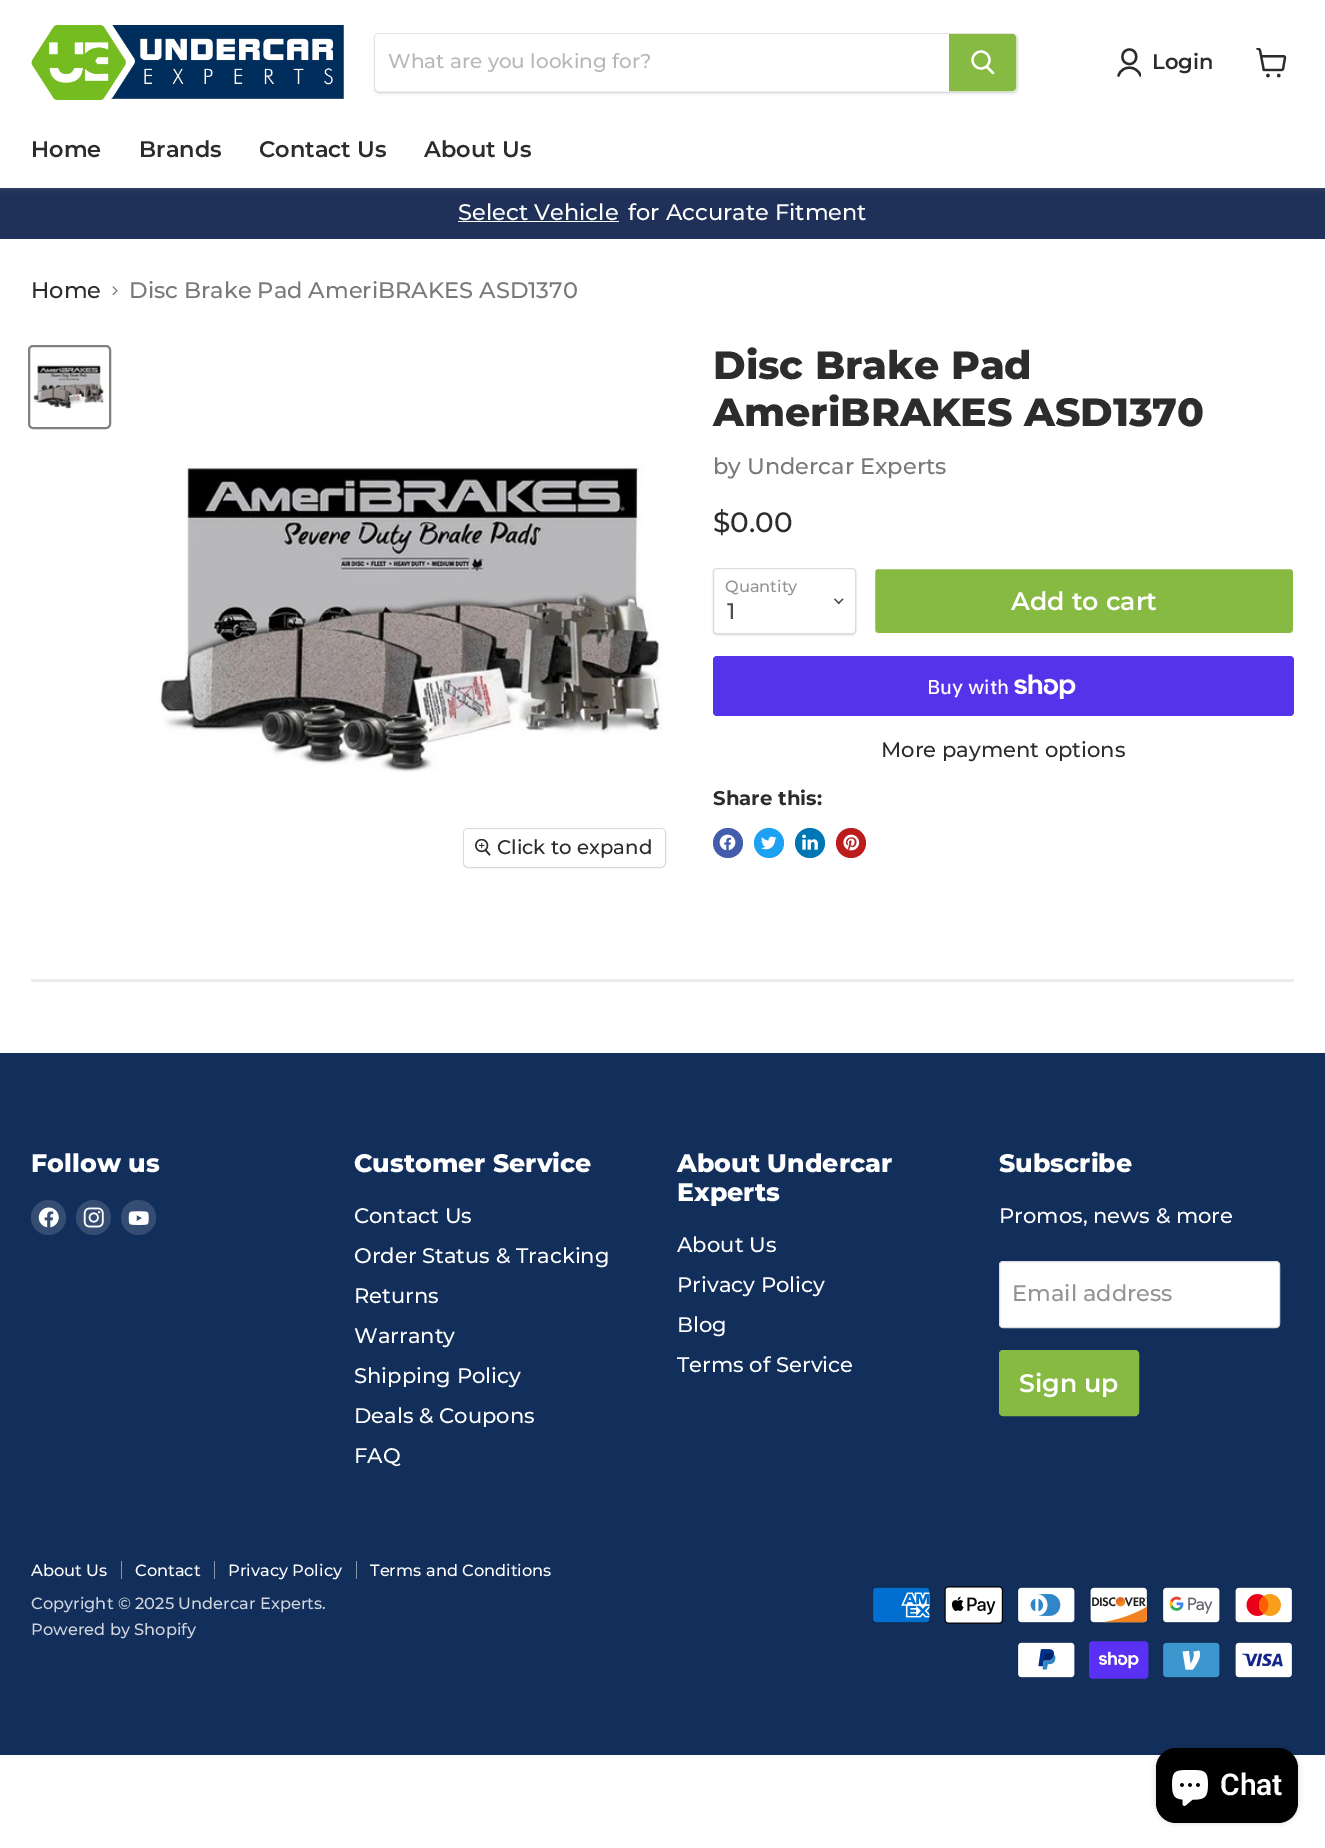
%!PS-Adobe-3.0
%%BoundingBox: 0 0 1325 1848
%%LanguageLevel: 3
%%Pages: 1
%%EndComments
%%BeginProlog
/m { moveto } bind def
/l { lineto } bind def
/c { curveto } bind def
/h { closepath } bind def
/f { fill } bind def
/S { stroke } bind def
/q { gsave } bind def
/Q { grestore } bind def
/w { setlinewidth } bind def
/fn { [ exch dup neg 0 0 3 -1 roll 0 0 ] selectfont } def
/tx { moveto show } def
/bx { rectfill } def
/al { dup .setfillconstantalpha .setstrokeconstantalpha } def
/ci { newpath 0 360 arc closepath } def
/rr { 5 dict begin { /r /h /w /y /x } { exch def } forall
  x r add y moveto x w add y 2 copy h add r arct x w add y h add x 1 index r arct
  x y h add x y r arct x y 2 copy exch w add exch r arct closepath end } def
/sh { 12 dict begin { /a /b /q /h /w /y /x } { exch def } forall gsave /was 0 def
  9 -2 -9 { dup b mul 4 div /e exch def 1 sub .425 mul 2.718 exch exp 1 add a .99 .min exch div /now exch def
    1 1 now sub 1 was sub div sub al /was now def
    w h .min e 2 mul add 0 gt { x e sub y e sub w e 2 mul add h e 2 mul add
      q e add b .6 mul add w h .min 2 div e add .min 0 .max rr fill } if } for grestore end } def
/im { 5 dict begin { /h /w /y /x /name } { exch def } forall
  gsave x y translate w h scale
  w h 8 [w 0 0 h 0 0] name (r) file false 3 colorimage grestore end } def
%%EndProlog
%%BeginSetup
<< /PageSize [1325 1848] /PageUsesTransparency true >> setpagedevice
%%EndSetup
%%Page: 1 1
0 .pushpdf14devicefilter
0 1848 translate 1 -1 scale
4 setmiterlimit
1 setgray
0 0 1325 1848 bx
0.122 0.192 0.345 setrgbcolor
0 188 1325 51 bx
0.502 setgray
0 1 1325 188 0 2.5 0.25 sh
1 setgray
0 0 1325 188 bx
(image0.raw) 31 25 313 75 im
0.502 setgray
374 35 644 60 5 2 0.11 sh
0.2 al
374.5 33.5 643 59 4.5 rr S
1 al
1 setgray
379 34 m 949 34 l 949 91 l 379 91 l 377 91 375 89 375 87 c 375 38 l 375 36 377 34 379 34 c h f
/Montserrat-Medium 20 fn
0.722 setgray
(What are you looking for?) 388 68 tx
0.529 0.729 0.259 setrgbcolor
949.5 34.5 m 1012 34.5 l 1014 34.5 1015.5 36 1015.5 38 c 1015.5 87 l 1015.5 89 1014 90.5 1012 90.5 c 949.5 90.5 l h q f Q
S
1 setgray
2.2 w
1 setlinecap
993 73 m 987 67 l S
0 setlinecap
981 60 8.5 ci S
0.173 setgray
2.3 w
1 setlinecap
1 setlinejoin
1129.5 64 m 1138.5 64 1138.5 49.5 1129.5 49.5 c 1120 49.5 1120 64 1129.5 64 c h S
q
1116 48 25 30 rectclip
1140.5 75.5 m 1136.5 65 1122 65 1118.5 75.5 c S
Q
/Montserrat-SemiBold 21.1 fn
(Login) 1152 69 tx
(image1.raw) 1256 48 31 30 im
/Montserrat-SemiBold 22.5 fn
(Home) 31 157 tx
(Brands) 139 157 tx
(Contact Us) 259 157 tx
(About Us) 424 157 tx
/Montserrat-Medium 22.5 fn
1 setgray
(Select Vehicle) 458 220 tx
458 221 161 1 bx
(for Accurate Fitment) 628 220 tx
0.173 setgray
(Home) 31 298 tx
(image2.raw) 112 286 6 10 im
0.475 setgray
(Disc Brake Pad AmeriBRAKES ASD1370) 129 298 tx
/Montserrat-ExtraBold 39.4 fn
0.173 setgray
(Disc Brake Pad) 713 379 tx
(AmeriBRAKES ASD1370) 713 426 tx
/Montserrat-Medium 22.5 fn
0.475 setgray
(by Undercar Experts) 713 474 tx
/Montserrat-Medium 28 fn
0.173 setgray
($0.00) 713 532 tx
0 setgray
713 569 143 66 4 1 0.15 sh
1 setgray
713.5 568.5 142 65 3.5 rr q f Q
0.867 setgray
1 w
0 setlinecap
0 setlinejoin
S
/Montserrat-Medium 16.25 fn
0.58 setgray
(Quantity) 725 592 tx
(image3.raw) 834 598 10 7 im
/Montserrat-Medium 22.5 fn
0.302 setgray
(1) 727 619 tx
0.529 0.729 0.259 setrgbcolor
874.5 568.5 419 65 3.5 rr q f Q
1 setgray
S
/Montserrat-SemiBold 25.25 fn
(Add to cart) 1011 610 tx
0.329 0.2 0.922 setrgbcolor
713 656 581 60 4 rr f
/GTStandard-Medium 20 fn
1 setgray
(Buy with) 927 694 tx
(image4.raw) 1014 674 62 25 im
/Montserrat-Medium 21.1 fn
0.173 setgray
(More payment options) 881 757 tx
/Montserrat-Bold 19.75 fn
(Share this:) 713 805 tx
0.259 0.365 0.671 setrgbcolor
728 843 15 ci f
(image5.raw) 719 834 17 17 im
0.114 0.631 0.949 setrgbcolor
769 843 15 ci f
(image6.raw) 761 836 16 14 im
0 0.467 0.71 setrgbcolor
810 843 15 ci f
(image7.raw) 802 834 16 16 im
0.741 0.11 0.11 setrgbcolor
851 843 15 ci f
(image8.raw) 843 834 17 17 im
0.506 setgray
2 w
29 346 81 82 4 rr S
(image9.raw) 33 364 71 45 im
(image10.raw) 159 463 504 309 im
0.851 setgray
1 w
463.5 828.5 202 39 4.5 rr S
0.9 al
1 setgray
464 829 201 37 4 rr f
1 al
(image11.raw) 475 839 16 17 im
/Montserrat-Medium 19.75 fn
0.173 setgray
(Click to expand) 497 854 tx
0.16 al
0.502 setgray
31 979 1263 3 bx
1 al
0.071 0.18 0.353 setrgbcolor
0 1053 1325 702 bx
/Montserrat-ExtraBold 25.25 fn
1 setgray
(Follow us) 31 1172 tx
0.212 0.302 0.451 setrgbcolor
48.5 1217.5 17.5 ci f
(image12.raw) 38 1207 21 21 im
93.5 1217.5 17.5 ci f
(image13.raw) 83 1207 21 21 im
138.5 1217.5 17.5 ci f
(image14.raw) 128 1211 21 14 im
1 setgray
(Customer Service) 354 1172 tx
/Montserrat-Medium 21.1 fn
(Contact Us) 354 1223 tx
(Order Status & Tracking) 354 1263 tx
(Returns) 354 1303 tx
(Warranty) 354 1343 tx
(Shipping Policy) 354 1383 tx
(Deals & Coupons) 354 1423 tx
(FAQ) 354 1463 tx
/Montserrat-ExtraBold 25.25 fn
(About Undercar) 677 1172 tx
(Experts) 677 1201 tx
/Montserrat-Medium 21.1 fn
(About Us) 677 1252 tx
(Privacy Policy) 677 1292 tx
(Blog) 677 1332 tx
(Terms of Service) 677 1372 tx
/Montserrat-ExtraBold 25.25 fn
(Subscribe) 999 1172 tx
/Montserrat-Medium 21.1 fn
(Promos, news & more) 999 1223 tx
999.5 1261.5 280 66 3.5 rr q f Q
0.867 setgray
S
/Montserrat-Medium 22.5 fn
0.58 setgray
(Email address) 1012 1301 tx
0.529 0.729 0.259 setrgbcolor
999.5 1350.5 139 65 3.5 rr q f Q
S
/Montserrat-SemiBold 25.25 fn
1 setgray
(Sign up) 1019 1392 tx
0.537 0.592 0.678 setrgbcolor
121 1561 1 18 bx
/Montserrat-Medium 16.25 fn
1 setgray
(About Us) 31 1576 tx
0.537 0.592 0.678 setrgbcolor
214 1561 1 18 bx
1 setgray
(Contact) 135 1576 tx
0.537 0.592 0.678 setrgbcolor
356 1561 1 18 bx
1 setgray
(Privacy Policy) 228 1576 tx
(Terms and Conditions) 370 1576 tx
0.816 0.835 0.871 setrgbcolor
(Copyright © 2025 Undercar Experts.) 31 1609 tx
(Powered by Shopify) 31 1635 tx
(image15.raw) 872 1586 59 38 im
(image16.raw) 944 1586 59 38 im
(image17.raw) 1017 1586 59 38 im
(image18.raw) 1089 1586 59 38 im
(image19.raw) 1162 1586 59 38 im
(image20.raw) 1234 1586 59 38 im
(image21.raw) 1017 1641 59 38 im
(image22.raw) 1089 1641 60 38 im
(image23.raw) 1162 1641 59 38 im
(image24.raw) 1234 1641 59 38 im
0 setgray
1156 1748 142 75 20 3 0.15 sh
1156 1748 142 75 20 rr f
(image25.raw) 1172 1770 36 36 im
/Roboto-SemiBold 30 fn
1 setgray
(Chat) 1220 1795 tx
.poppdf14devicefilter showpage
%%EOF
